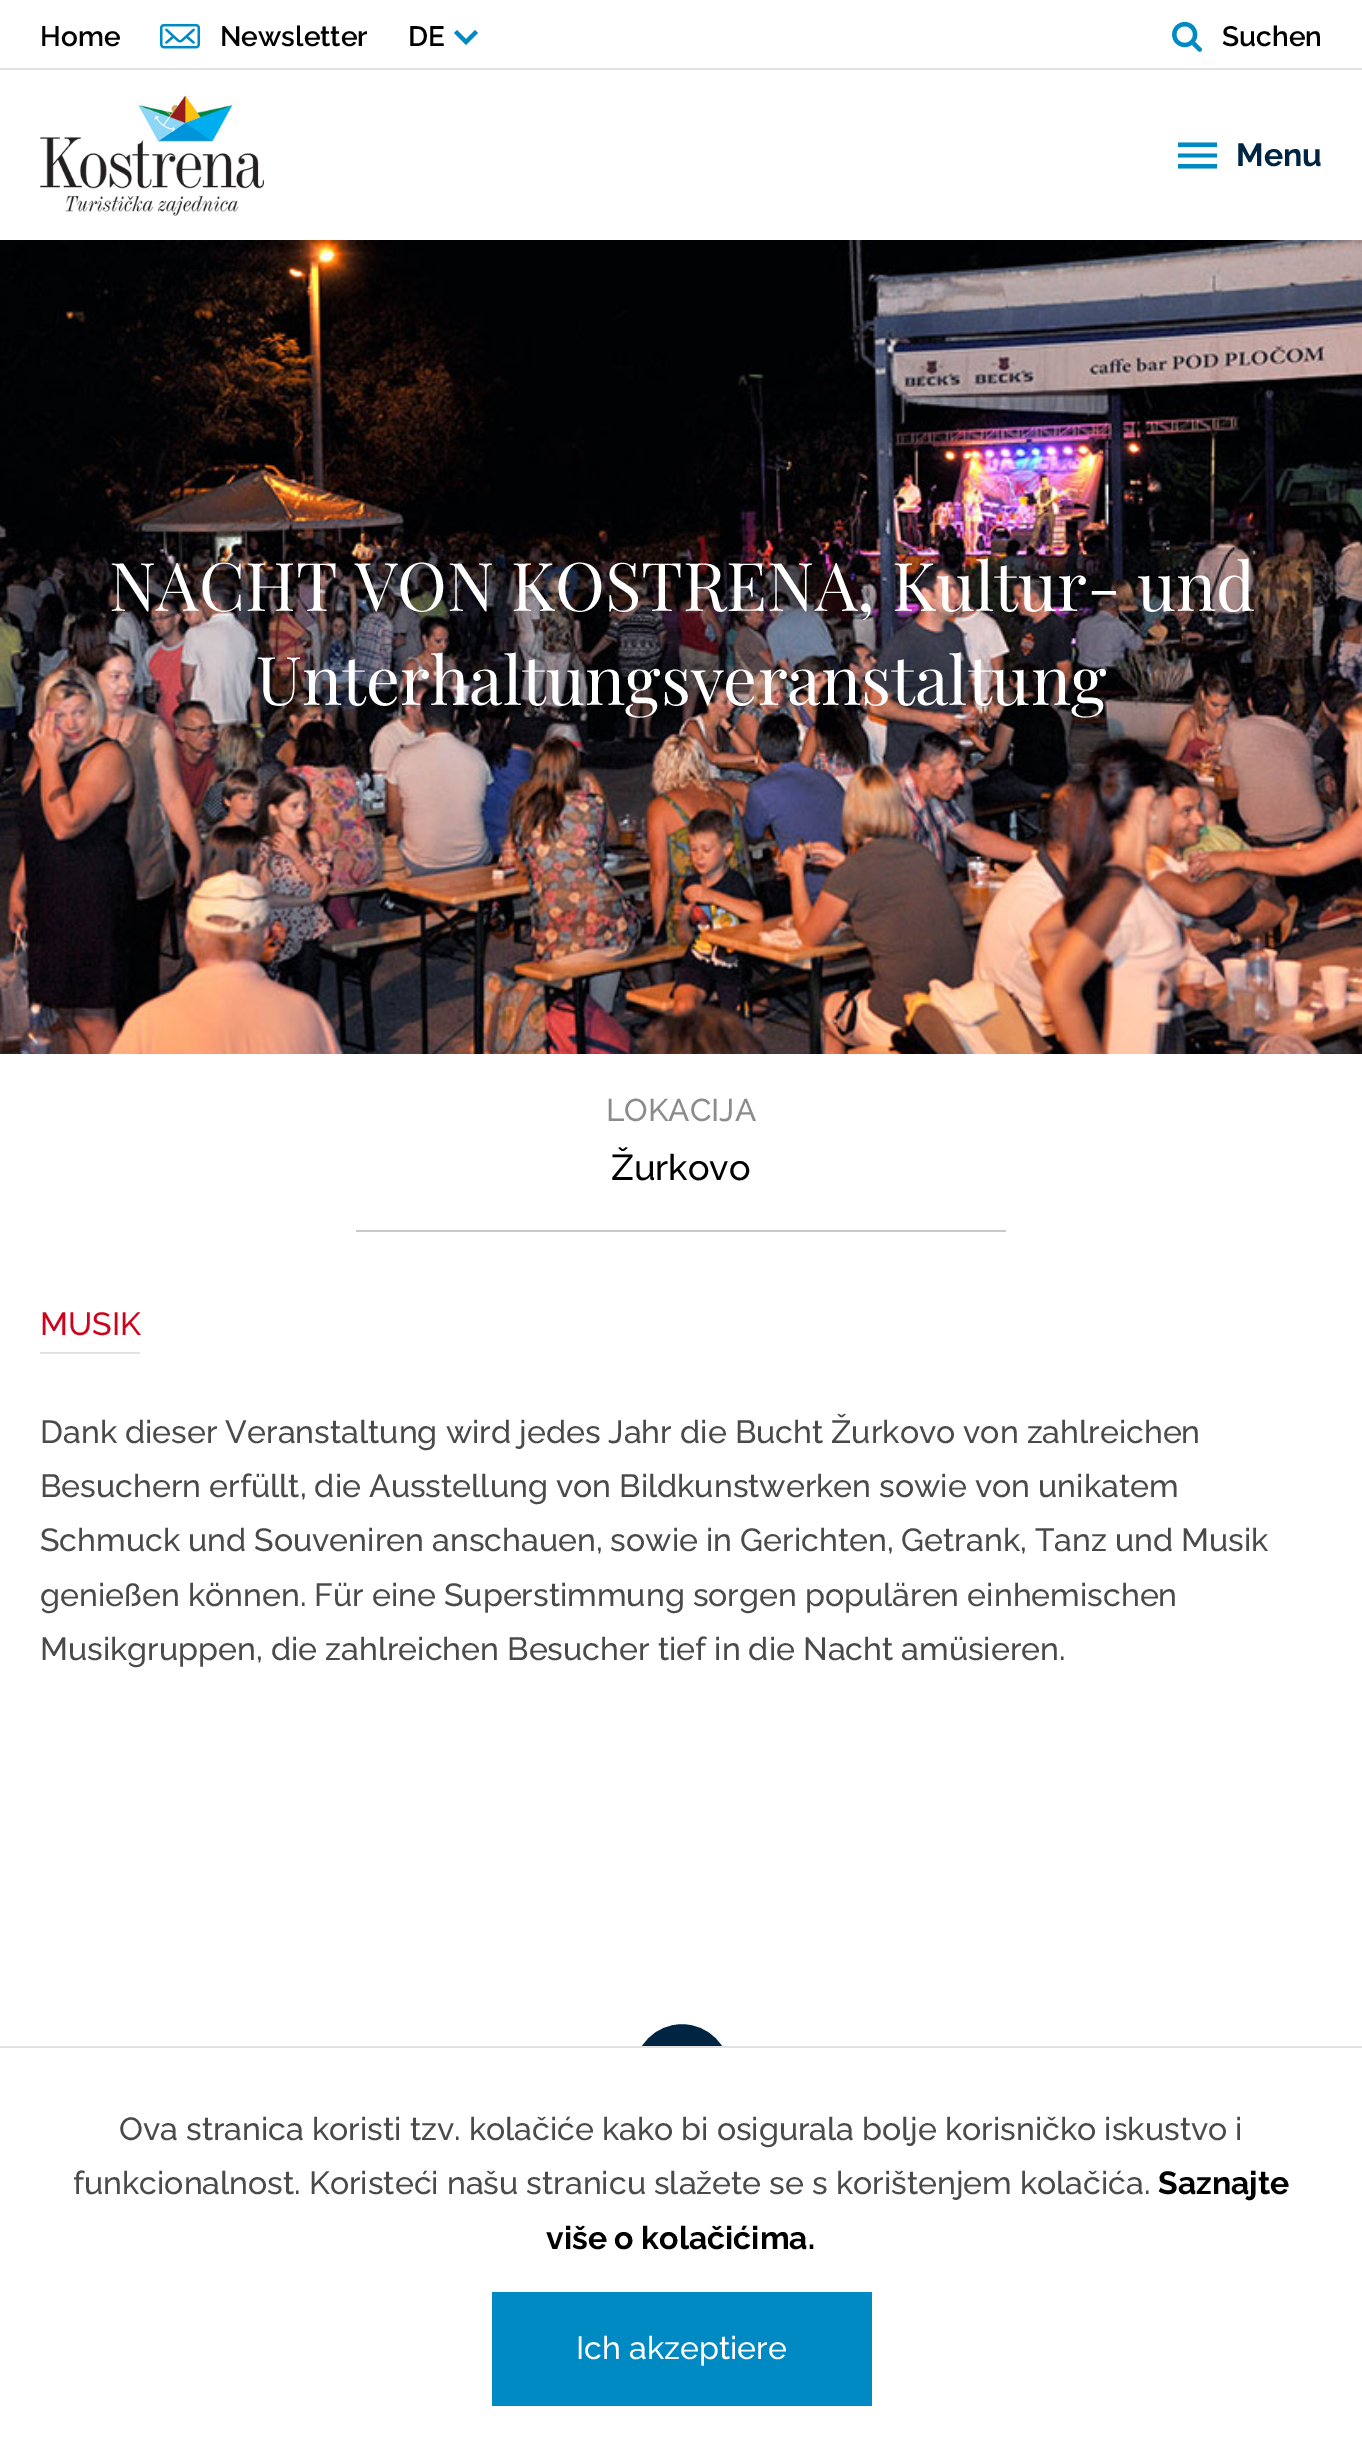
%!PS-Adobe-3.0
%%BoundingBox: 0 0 1362 2460
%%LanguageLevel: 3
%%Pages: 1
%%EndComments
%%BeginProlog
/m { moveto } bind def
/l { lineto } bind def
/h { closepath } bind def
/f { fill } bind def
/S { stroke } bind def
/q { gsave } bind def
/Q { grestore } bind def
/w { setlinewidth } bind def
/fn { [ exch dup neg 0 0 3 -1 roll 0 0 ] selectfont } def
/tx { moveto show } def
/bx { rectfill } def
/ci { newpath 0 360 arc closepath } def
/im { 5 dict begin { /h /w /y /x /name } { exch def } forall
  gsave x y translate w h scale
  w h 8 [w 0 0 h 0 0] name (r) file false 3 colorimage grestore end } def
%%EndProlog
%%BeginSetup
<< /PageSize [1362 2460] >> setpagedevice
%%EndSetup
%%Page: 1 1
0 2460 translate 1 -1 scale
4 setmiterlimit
1 setgray
0 0 1362 2460 bx
/Raleway-SemiBold 28 fn
0 setgray
(Home) 40 46 tx
(image0.raw) 160 23 40 26 im
(Newsletter) 220 46 tx
(DE) 408 46 tx
0 0.541 0.769 setrgbcolor
457 30 m 466 39 l 475 30 l 478 33 l 466 45 l 454 33 l h f
(image1.raw) 1172 21 30 31 im
0 setgray
(Suchen) 1222 46 tx
0.886 setgray
0 68 1362 2 bx
(image2.raw) 40 95 224 121 im
0 0.541 0.769 setrgbcolor
1178 168.5 m 1178 164 l 1217 164 l 1217 168.5 l h 1178 157.5 m 1178 153.5 l 1217 153.5 l 1217 157.5 l h 1178 142.5 m 1217 142.5 l 1217 147 l 1178 147 l h f
/Raleway-Bold 32 fn
0 0.145 0.263 setrgbcolor
(Menu) 1236 166 tx
(image3.raw) 0 240 1362 814 im
/PlayfairDisplay-Regular 67.25 fn
1 setgray
(NACHT VON KOSTRENA, Kultur- und) 109 611 tx
(Unterhaltungsveranstaltung) 256 705 tx
0.788 setgray
356 1230 650 2 bx
/Raleway-Medium 31.5 fn
0.545 0.541 0.549 setrgbcolor
(LOKACIJA) 606 1121 tx
/Raleway-Medium 36 fn
0 setgray
(Žurkovo) 611 1180 tx
0.886 setgray
40 1352 100 2 bx
/Raleway-Medium 32 fn
0.816 0.004 0.106 setrgbcolor
(MUSIK) 40 1335 tx
0.29 setgray
(Dank dieser Veranstaltung wird jedes Jahr die Bucht Žurkovo von zahlreichen) 40 1443 tx
(Besuchern erfüllt, die Ausstellung von Bildkunstwerken sowie von unikatem) 40 1497 tx
(Schmuck und Souveniren anschauen, sowie in Gerichten, Getrank, Tanz und Musik) 40 1551 tx
(genießen können. Für eine Superstimmung sorgen populären einhemischen) 40 1606 tx
(Musikgruppen, die zahlreichen Besucher tief in die Nacht amüsieren.) 40 1660 tx
0 0.145 0.263 setrgbcolor
682 2072 49 ci q f Q
1 setgray
2 w
S
632 2048 100 74 bx
0.886 setgray
0 2046 1362 2 bx
0.29 setgray
(Ova stranica koristi tzv. kolačiće kako bi osigurala bolje korisničko iskustvo i) 119 2140 tx
(funkcionalnost. Koristeći našu stranicu slažete se s korištenjem kolačića.) 73 2194 tx
/Raleway-Bold 32 fn
0 setgray
(Saznajte) 1158 2194 tx
(više o kolačićima.) 546 2249 tx
0 0.541 0.769 setrgbcolor
492 2292 380 114 bx
/Raleway-Medium 32 fn
1 setgray
(Ich akzeptiere) 576 2359 tx
showpage
%%EOF
